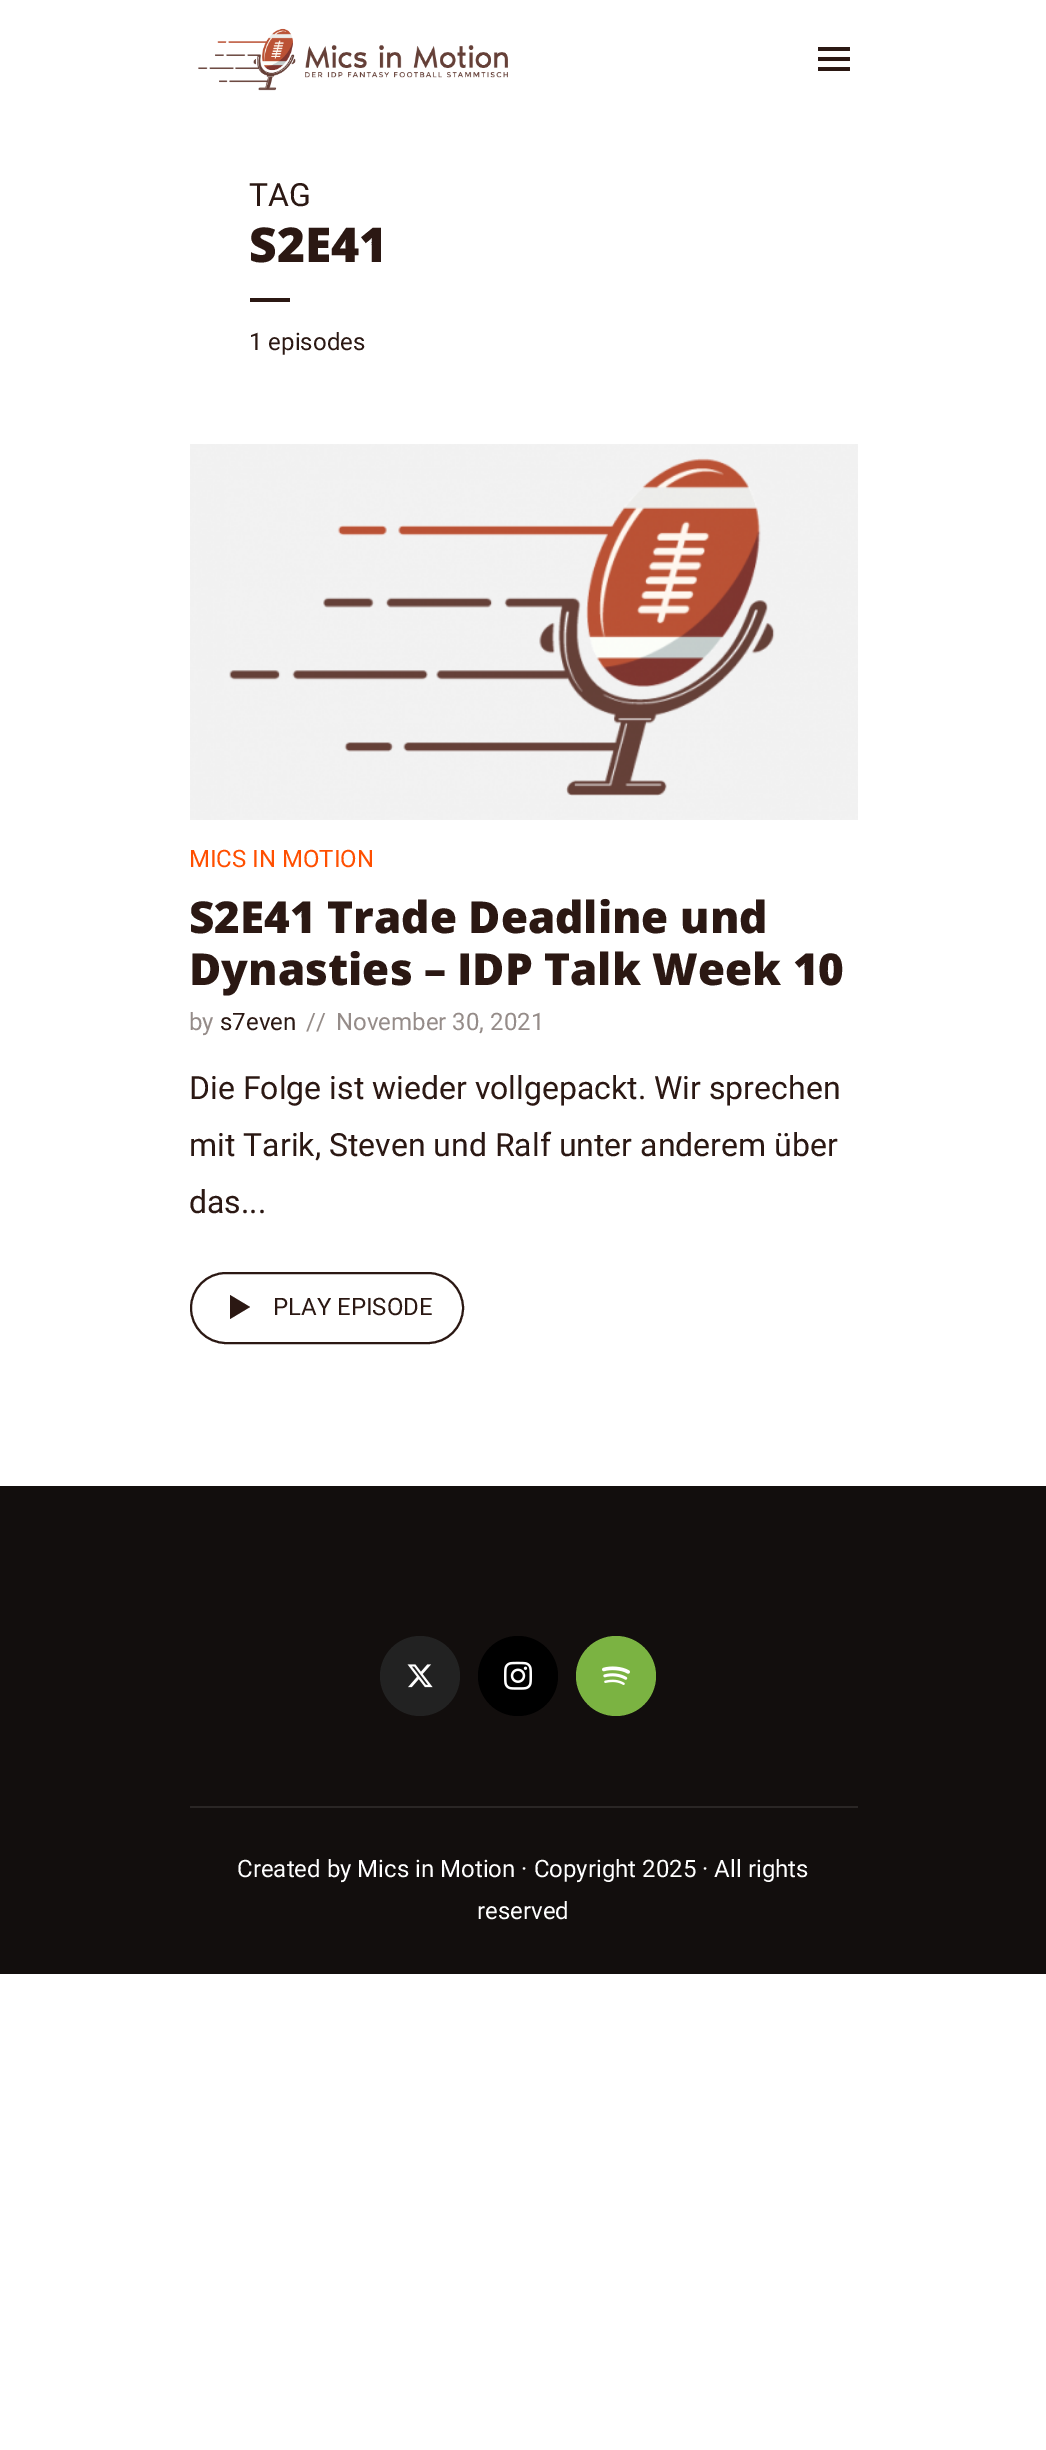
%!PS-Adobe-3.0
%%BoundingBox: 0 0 1046 2450
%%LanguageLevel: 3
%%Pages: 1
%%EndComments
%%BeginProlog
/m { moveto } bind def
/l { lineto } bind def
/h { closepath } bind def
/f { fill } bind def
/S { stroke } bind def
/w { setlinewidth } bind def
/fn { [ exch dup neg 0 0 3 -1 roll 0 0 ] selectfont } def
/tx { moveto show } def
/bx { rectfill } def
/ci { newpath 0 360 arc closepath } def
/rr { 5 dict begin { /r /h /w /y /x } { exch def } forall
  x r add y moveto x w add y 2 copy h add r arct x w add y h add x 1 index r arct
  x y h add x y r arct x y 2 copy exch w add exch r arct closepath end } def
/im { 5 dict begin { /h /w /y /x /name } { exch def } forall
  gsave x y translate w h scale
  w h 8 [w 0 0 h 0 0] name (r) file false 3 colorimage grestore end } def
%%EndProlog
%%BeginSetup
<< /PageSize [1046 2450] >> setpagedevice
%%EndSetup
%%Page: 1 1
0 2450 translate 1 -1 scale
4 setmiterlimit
1 setgray
0 0 1046 2450 bx
(image0.raw) 198 28 310 63 im
(image1.raw) 818 47 32 24 im
/Roboto-Regular 32 fn
0.169 0.094 0.075 setrgbcolor
(TAG) 249 206 tx
/OpenSans-ExtraBold 48 fn
(S2E41) 249 262 tx
250 298 40 4 bx
/Roboto-Regular 24 fn
(1 episodes) 249 350 tx
(image2.raw) 190 444 668 376 im
1 0.31 0 setrgbcolor
(MICS IN MOTION) 189 867 tx
/OpenSans-ExtraBold 44 fn
0.169 0.094 0.075 setrgbcolor
(S2E41 Trade Deadline und) 189 933 tx
(Dynasties – IDP Talk Week 10) 189 985 tx
/Roboto-Regular 24 fn
0.584 0.549 0.537 setrgbcolor
(by) 189 1030 tx
0.169 0.094 0.075 setrgbcolor
(s7even) 220 1030 tx
0.584 0.549 0.537 setrgbcolor
(//) 306 1030 tx
(November 30, 2021) 336 1030 tx
/Roboto-Regular 32 fn
0.169 0.094 0.075 setrgbcolor
(Die Folge ist wieder vollgepackt. Wir sprechen) 189 1099 tx
(mit Tarik, Steven und Ralf unter anderem über) 189 1156 tx
(das...) 189 1213 tx
2 w
191 1273 272 70 35 rr S
230 1295 m 250 1307 l 230 1319 l h f
/Roboto-Regular 24 fn
(PLAY EPISODE) 273 1315 tx
0.071 0.055 0.051 setrgbcolor
0 1486 1046 488 bx
0.133 setgray
420 1676 40 ci f
(image3.raw) 407 1664 26 24 im
0 setgray
518 1676 40 ci f
(image4.raw) 504 1661 28 29 im
0.482 0.702 0.259 setrgbcolor
616 1676 40 ci f
(image5.raw) 602 1666 28 19 im
0.165 0.149 0.145 setrgbcolor
190 1806 668 2 bx
1 setgray
(Created by Mics in Motion · Copyright 2025 · All rights) 237 1877 tx
(reserved) 477 1919 tx
showpage
%%EOF
